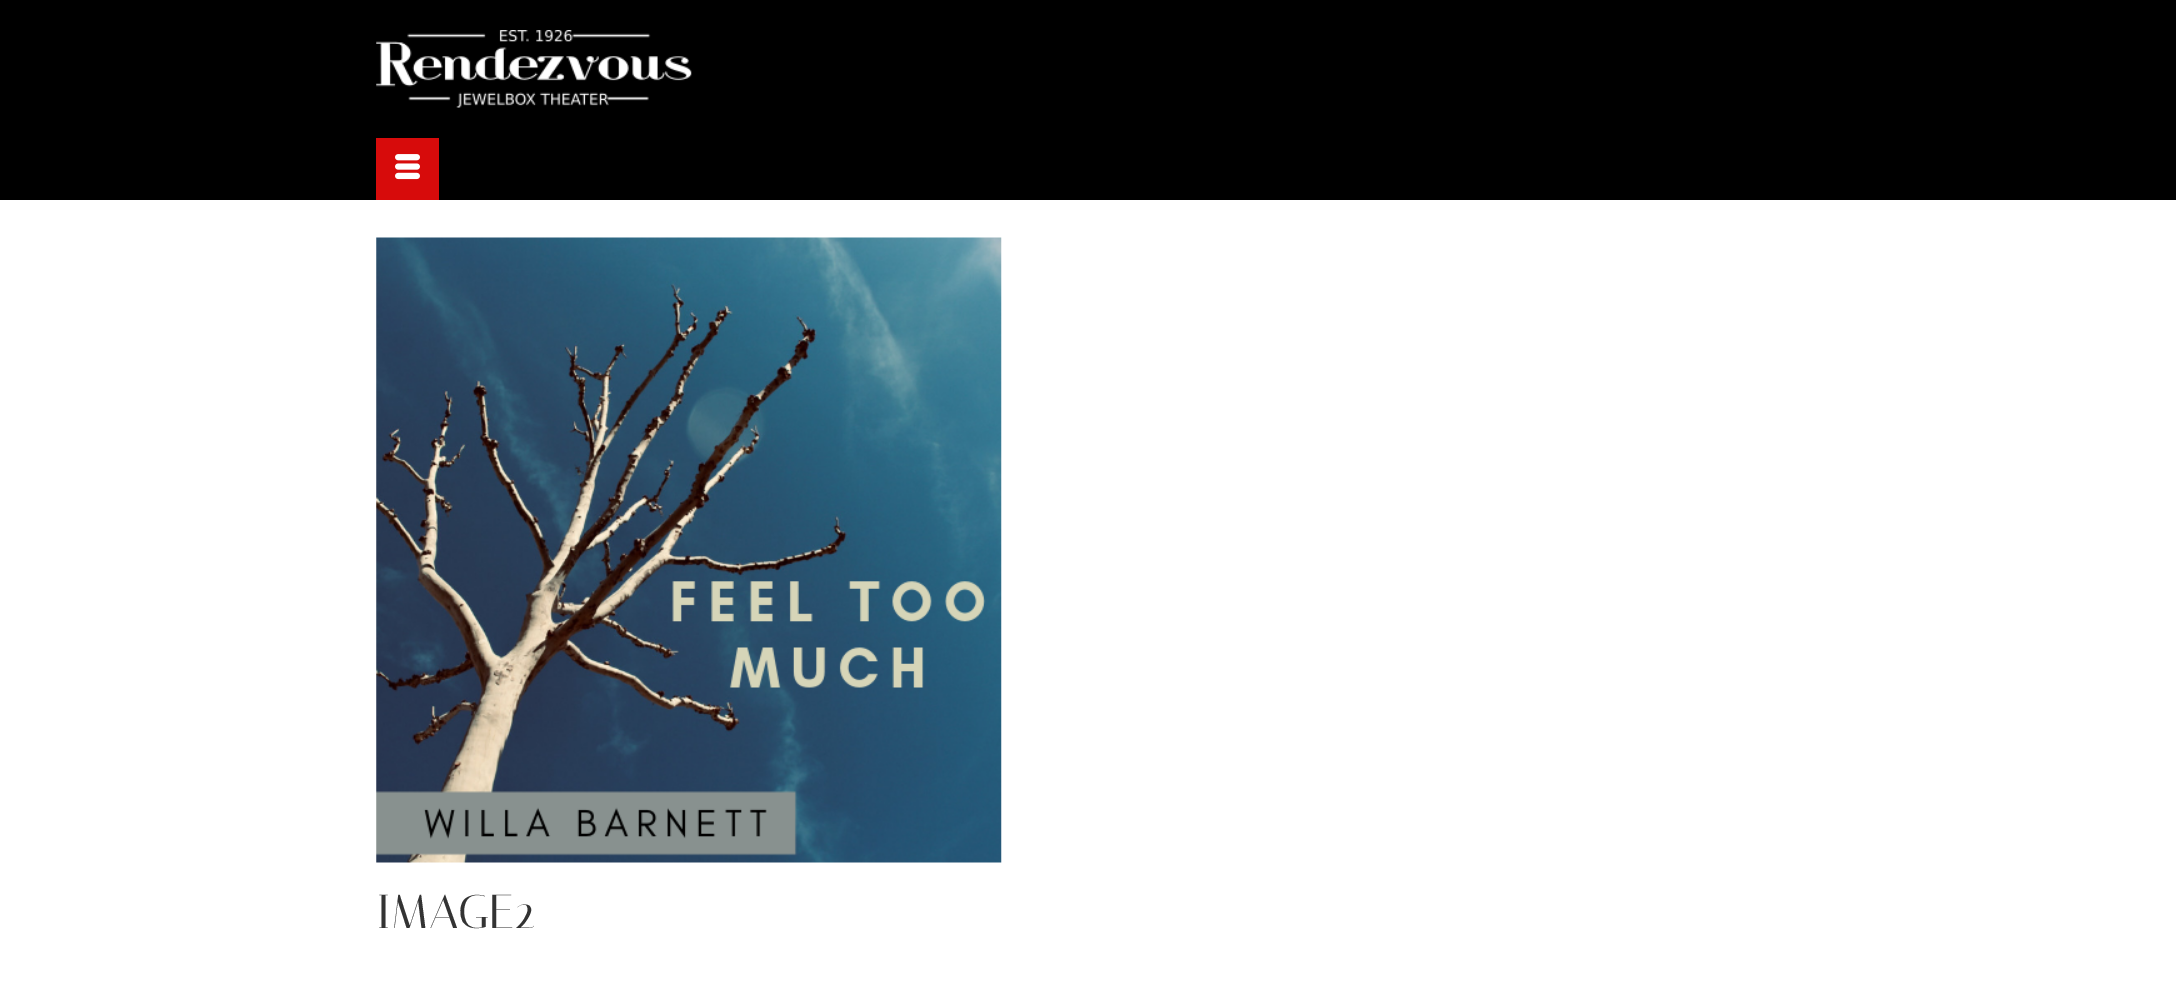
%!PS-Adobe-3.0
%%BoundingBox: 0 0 2176 985
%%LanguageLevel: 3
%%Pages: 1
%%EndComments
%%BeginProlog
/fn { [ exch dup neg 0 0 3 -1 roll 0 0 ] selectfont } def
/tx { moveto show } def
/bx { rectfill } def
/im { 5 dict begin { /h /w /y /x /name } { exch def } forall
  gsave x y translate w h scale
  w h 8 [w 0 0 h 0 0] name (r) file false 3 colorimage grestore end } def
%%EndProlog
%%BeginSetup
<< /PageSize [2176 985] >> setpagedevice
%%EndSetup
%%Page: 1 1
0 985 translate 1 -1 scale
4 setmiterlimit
0 setgray
0 0 2176 985 bx
(image0.raw) 376 30 316 78 im
0.843 0.043 0.043 setrgbcolor
376 138 63 62 bx
(image1.raw) 395 154 25 26 im
1 setgray
0 200 2176 785 bx
(image2.raw) 376 237 626 626 im
/Italiana-Regular 47.5 fn
0.2 setgray
(IMAGE2) 376 928 tx
showpage
%%EOF
